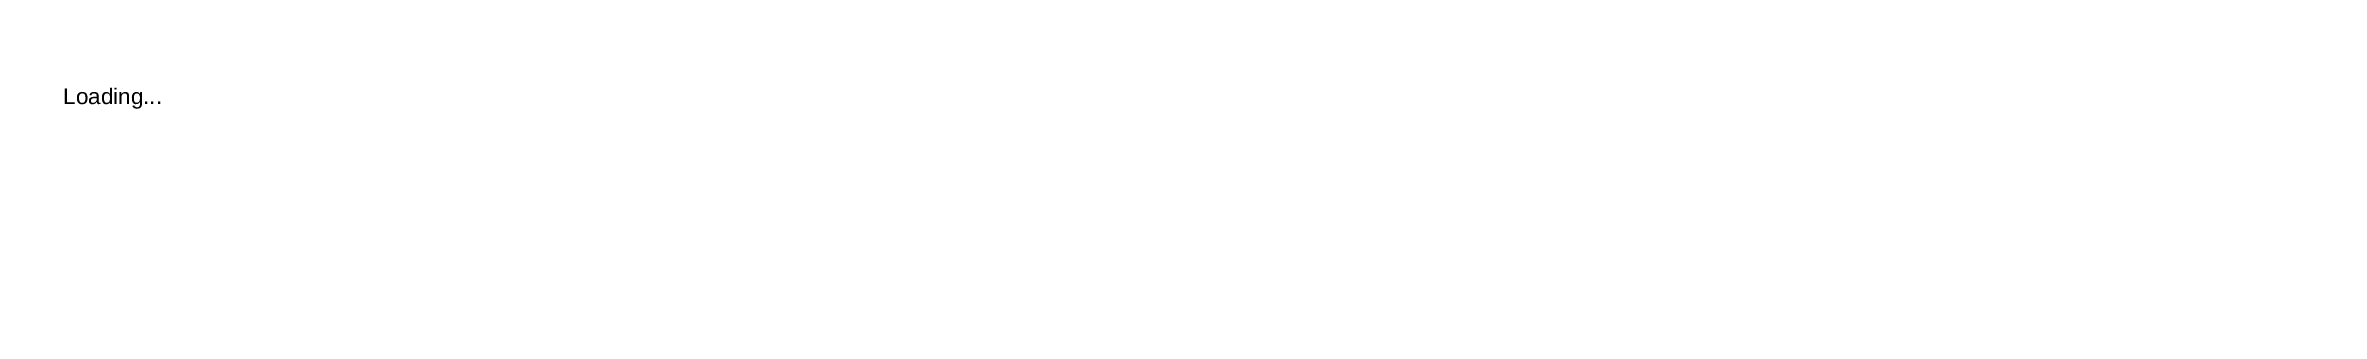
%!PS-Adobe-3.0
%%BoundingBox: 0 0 2367 359
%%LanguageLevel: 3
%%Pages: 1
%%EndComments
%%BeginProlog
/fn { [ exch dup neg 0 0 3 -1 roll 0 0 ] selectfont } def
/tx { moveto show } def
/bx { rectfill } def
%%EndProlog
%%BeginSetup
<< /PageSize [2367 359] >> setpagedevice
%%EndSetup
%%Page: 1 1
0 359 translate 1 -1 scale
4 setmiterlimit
1 setgray
0 0 2367 359 bx
/LiberationSans-Regular 22.5 fn
0 setgray
(Loading...) 63 104 tx
showpage
%%EOF
